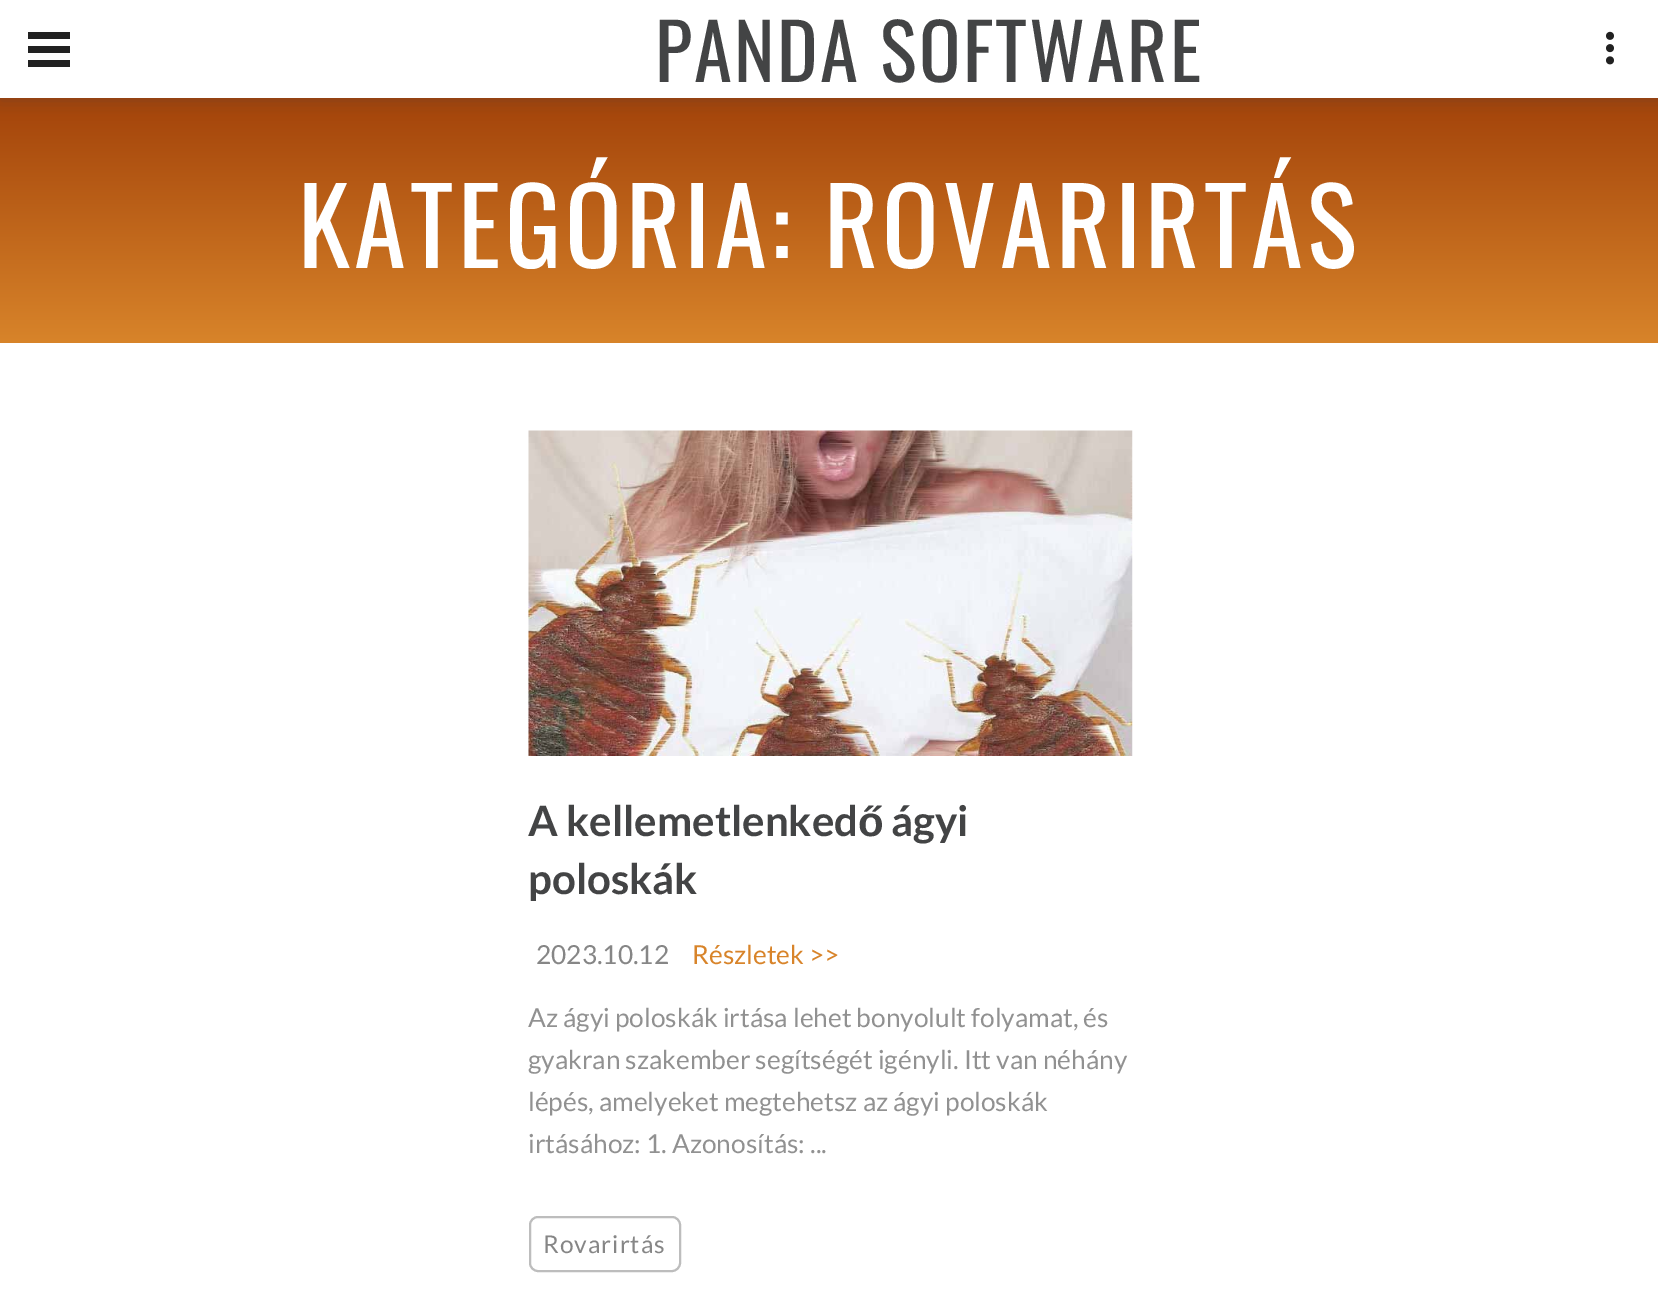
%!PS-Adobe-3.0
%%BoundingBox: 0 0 1658 1301
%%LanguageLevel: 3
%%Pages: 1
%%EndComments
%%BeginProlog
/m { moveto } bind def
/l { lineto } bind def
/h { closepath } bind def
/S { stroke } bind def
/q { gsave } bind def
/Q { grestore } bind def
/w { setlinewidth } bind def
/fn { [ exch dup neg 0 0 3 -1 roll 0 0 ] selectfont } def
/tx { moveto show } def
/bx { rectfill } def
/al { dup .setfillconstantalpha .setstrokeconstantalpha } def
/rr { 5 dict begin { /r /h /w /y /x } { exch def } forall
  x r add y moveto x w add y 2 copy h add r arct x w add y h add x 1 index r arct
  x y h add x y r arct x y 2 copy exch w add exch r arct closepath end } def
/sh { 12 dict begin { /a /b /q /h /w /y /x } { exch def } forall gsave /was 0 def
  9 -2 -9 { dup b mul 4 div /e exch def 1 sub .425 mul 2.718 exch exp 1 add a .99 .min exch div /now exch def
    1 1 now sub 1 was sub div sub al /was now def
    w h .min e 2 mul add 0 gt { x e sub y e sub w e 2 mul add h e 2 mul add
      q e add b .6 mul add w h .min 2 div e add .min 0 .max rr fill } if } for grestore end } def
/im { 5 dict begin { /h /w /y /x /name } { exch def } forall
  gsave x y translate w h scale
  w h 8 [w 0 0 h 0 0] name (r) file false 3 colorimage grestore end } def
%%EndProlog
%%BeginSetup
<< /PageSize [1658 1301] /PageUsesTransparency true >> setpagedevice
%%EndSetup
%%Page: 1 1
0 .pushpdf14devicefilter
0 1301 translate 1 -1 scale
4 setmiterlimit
1 setgray
0 0 1658 1301 bx
q 0 98 m 1658 98 l 1658 343 l 0 343 l h clip newpath
<< /ShadingType 2 /ColorSpace /DeviceRGB /Coords [830 343 830 98] /Extend [true true] /Function << /FunctionType 2 /Domain [0 1] /C0 [0.847 0.518 0.165] /C1 [0.639 0.263 0.039] /N 1 >> >> shfill Q
q
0 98 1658 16 rectclip
0.263 0.267 0.271 setrgbcolor
0 2 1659 98 0 9 0.3 sh
Q
0.129 setgray
28 46 42 7 bx
28 32 42 7 bx
28 60 42 7 bx
/Oswald-Regular 77 fn
0.263 0.267 0.271 setrgbcolor
655 82 m 2.25 0 (PANDA SOFTWARE) ashow
(image0.raw) 1606 31 8 34 im
/Oswald-Regular 105 fn
1 setgray
298 268 m 4.2 0 (KATEGÓRIA: ROVARIRTÁS) ashow
(image1.raw) 528 430 605 326 im
/Lato-Bold 42 fn
0.263 0.267 0.271 setrgbcolor
(A kellemetlenked) 528 836 tx
/LiberationSans-Bold 42 fn
(ő) 858 836 tx
/Lato-Bold 42 fn
(ágyi) 891 836 tx
(poloskák) 528 894 tx
/Lato-Regular 26.25 fn
0.525 setgray
(2023.10.12) 536 964 tx
0.847 0.518 0.165 setrgbcolor
(Részletek >>) 692 964 tx
0.569 setgray
(Az ágyi poloskák irtása lehet bonyolult folyamat, és) 528 1027 tx
(gyakran szakember segítségét igényli. Itt van néhány) 528 1069 tx
(lépés, amelyeket megtehetsz az ágyi poloskák) 528 1111 tx
(irtásához: 1. Azonosítás: ...) 528 1153 tx
0.741 setgray
2 w
530 1217 150 54 8 rr S
/Lato-Regular 24.5 fn
0.525 setgray
543 1253 m 1 0 (Rovarirtás) ashow
.poppdf14devicefilter showpage
%%EOF
